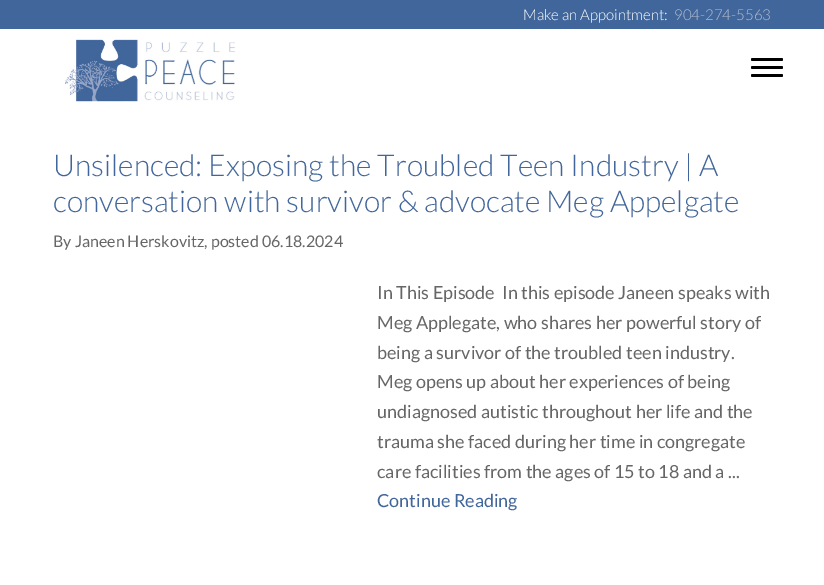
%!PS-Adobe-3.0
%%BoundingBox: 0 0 824 585
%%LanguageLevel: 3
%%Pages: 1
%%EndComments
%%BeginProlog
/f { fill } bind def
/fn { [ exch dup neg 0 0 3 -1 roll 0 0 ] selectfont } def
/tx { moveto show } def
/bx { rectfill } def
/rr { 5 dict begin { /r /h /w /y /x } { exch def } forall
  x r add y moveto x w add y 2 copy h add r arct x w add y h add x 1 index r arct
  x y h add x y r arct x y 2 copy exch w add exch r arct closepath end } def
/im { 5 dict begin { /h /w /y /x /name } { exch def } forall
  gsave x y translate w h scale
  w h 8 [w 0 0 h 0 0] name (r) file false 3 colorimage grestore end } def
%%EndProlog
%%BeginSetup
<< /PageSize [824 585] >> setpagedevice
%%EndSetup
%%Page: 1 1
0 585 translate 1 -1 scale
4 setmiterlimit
1 setgray
0 0 824 585 bx
0.255 0.4 0.608 setrgbcolor
0 0 824 29 bx
/Lato-Light 15 fn
1 setgray
(Make an Appointment:) 523 20 tx
0.714 0.741 0.804 setrgbcolor
(904-274-5563) 674 20 tx
(image0.raw) 65 39 170 63 im
0 setgray
751 66 32 3 1.5 rr f
751 58 32 3 1.5 rr f
751 74 32 3 1.5 rr f
/Lato-Light 30 fn
0.255 0.4 0.608 setrgbcolor
(Unsilenced: Exposing the Troubled Teen Industry | A) 53 176 tx
(conversation with survivor & advocate Meg Appelgate) 53 212 tx
/Lato-Regular 16 fn
0.4 setgray
(By Janeen Herskovitz, posted 06.18.2024) 53 247 tx
/Lato-Regular 18 fn
(In This Episode) 377 299 tx
(In this episode Janeen speaks with) 502 299 tx
(Meg Applegate, who shares her powerful story of) 377 329 tx
(being a survivor of the troubled teen industry.) 377 359 tx
(Meg opens up about her experiences of being) 377 388 tx
(undiagnosed autistic throughout her life and the) 377 418 tx
(trauma she faced during her time in congregate) 377 448 tx
(care facilities from the ages of 15 to 18 and a ...) 377 478 tx
0.255 0.4 0.608 setrgbcolor
(Continue Reading) 377 507 tx
showpage
%%EOF
